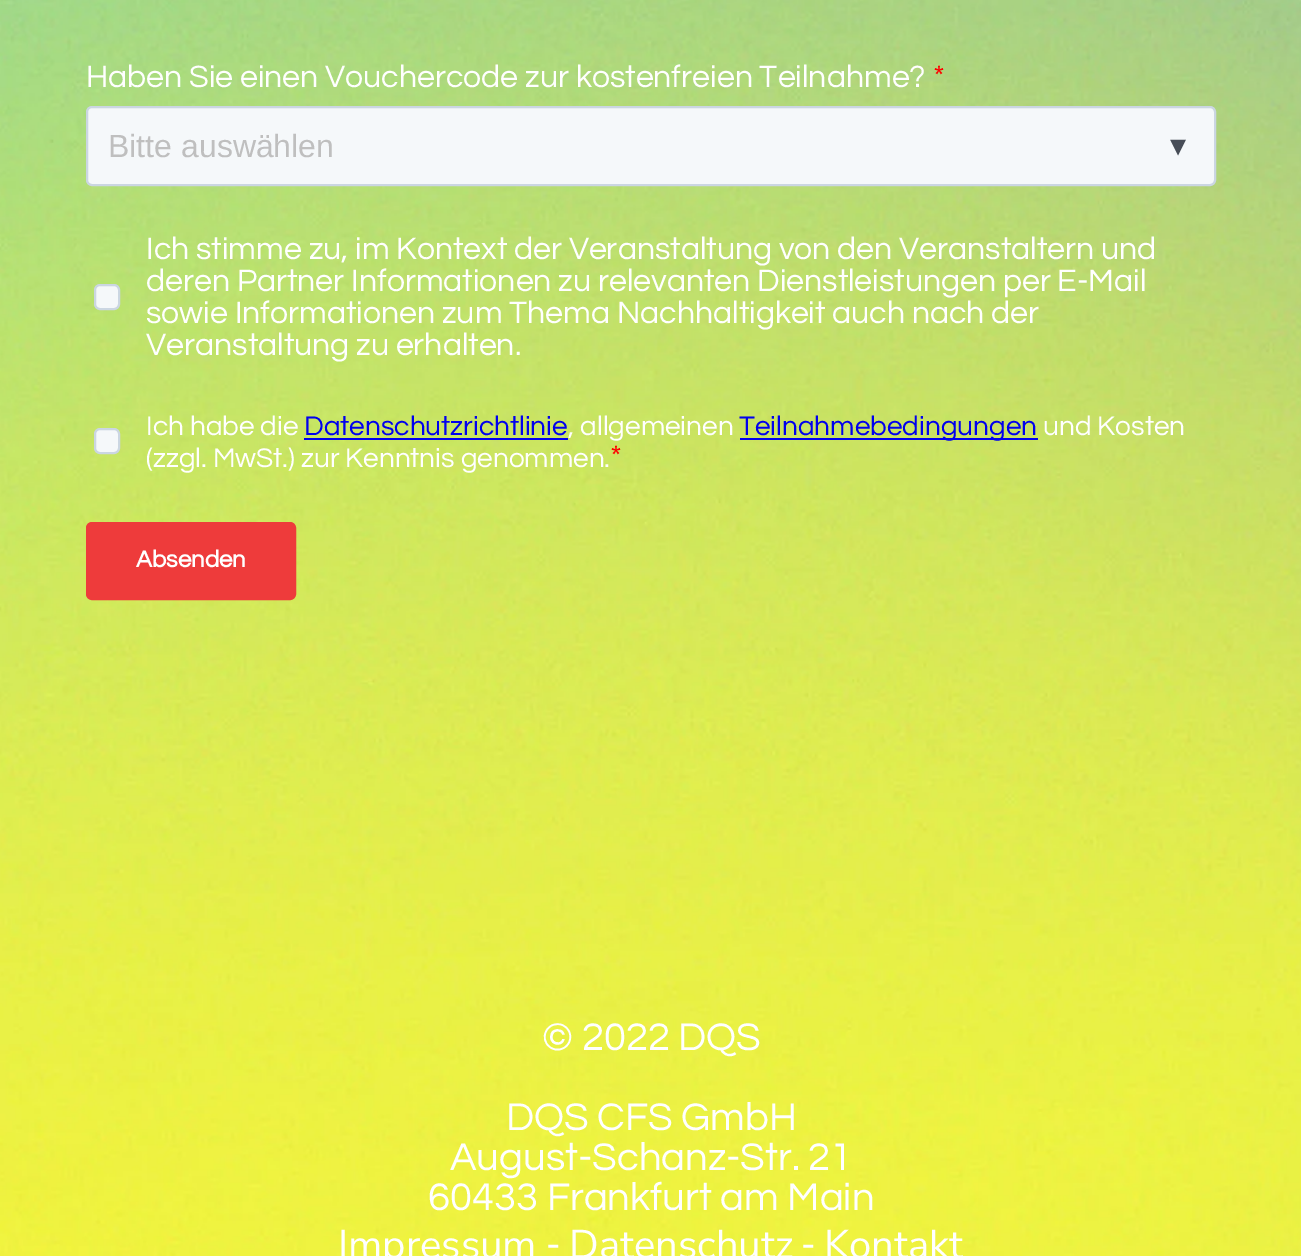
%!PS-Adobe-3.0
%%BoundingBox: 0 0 1301 1256
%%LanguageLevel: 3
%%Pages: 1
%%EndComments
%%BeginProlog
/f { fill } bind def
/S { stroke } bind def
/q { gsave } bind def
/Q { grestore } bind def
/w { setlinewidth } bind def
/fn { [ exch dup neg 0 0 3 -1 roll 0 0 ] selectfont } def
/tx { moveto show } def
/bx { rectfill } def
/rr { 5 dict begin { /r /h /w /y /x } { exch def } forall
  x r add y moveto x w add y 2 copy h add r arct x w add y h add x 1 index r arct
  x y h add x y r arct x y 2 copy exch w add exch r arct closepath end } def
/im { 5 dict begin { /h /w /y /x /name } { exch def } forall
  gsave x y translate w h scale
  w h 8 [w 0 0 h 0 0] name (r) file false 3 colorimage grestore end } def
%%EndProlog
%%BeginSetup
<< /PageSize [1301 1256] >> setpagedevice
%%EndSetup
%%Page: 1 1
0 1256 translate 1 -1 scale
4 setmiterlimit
1 setgray
0 0 1301 1256 bx
(image0.raw) 0 0 1301 1256 im
/Questrial-Regular 32 fn
(Haben Sie einen Vouchercode zur kostenfreien Teilnahme?) 86 87 tx
1 0 0 setrgbcolor
(*) 933 87 tx
0.961 0.973 0.98 setrgbcolor
87 107 1128 78 5 rr q f Q
0.796 0.839 0.886 setrgbcolor
2 w
S
/LiberationSans-Regular 32 fn
0.749 setgray
(Bitte auswählen) 108 157 tx
/DejaVuSans-Regular 32 fn
0.278 0.302 0.341 setrgbcolor
(▾) 1170 156 tx
0.961 0.973 0.98 setrgbcolor
95 285 24 24 5 rr q f Q
0.796 0.839 0.886 setrgbcolor
S
/Questrial-Regular 32 fn
1 setgray
(Ich stimme zu, im Kontext der Veranstaltung von den Veranstaltern und) 146 259 tx
(deren Partner Informationen zu relevanten Dienstleistungen per E-Mail) 146 291 tx
(sowie Informationen zum Thema Nachhaltigkeit auch nach der) 146 323 tx
(Veranstaltung zu erhalten.) 146 355 tx
0.961 0.973 0.98 setrgbcolor
95 429 24 24 5 rr q f Q
0.796 0.839 0.886 setrgbcolor
S
/Questrial-Regular 28 fn
1 setgray
(Ich habe die) 146 435 tx
0 0 0.933 setrgbcolor
(Datenschutzrichtlinie) 304 435 tx
1 setgray
(, allgemeinen) 568 435 tx
0 0 0.933 setrgbcolor
304 438 264 2 bx
740 438 298 2 bx
(Teilnahmebedingungen) 739 435 tx
1 setgray
(und Kosten) 1043 435 tx
(\(zzgl. MwSt.\) zur Kenntnis genommen.) 146 467 tx
/Questrial-Regular 32 fn
1 0 0 setrgbcolor
(*) 610 467 tx
0.933 0.231 0.231 setrgbcolor
87 523 208 76 5 rr q f Q
S
/Questrial-Bold 24 fn
1 setgray
(Absenden) 136 567 tx
/Questrial-Regular 40 fn
(© 2022 DQS) 542 1050 tx
(DQS CFS GmbH) 506 1130 tx
(August-Schanz-Str. 21) 450 1170 tx
(60433 Frankfurt am Main) 428 1210 tx
/NunitoSans-Regular 40 fn
(Impressum) 338 1258 tx
/Questrial-Regular 40 fn
(-) 546 1258 tx
/NunitoSans-Regular 40 fn
(Datenschutz) 569 1258 tx
/Questrial-Regular 40 fn
(-) 801 1258 tx
/NunitoSans-Regular 40 fn
(Kontakt) 824 1258 tx
showpage
%%EOF
